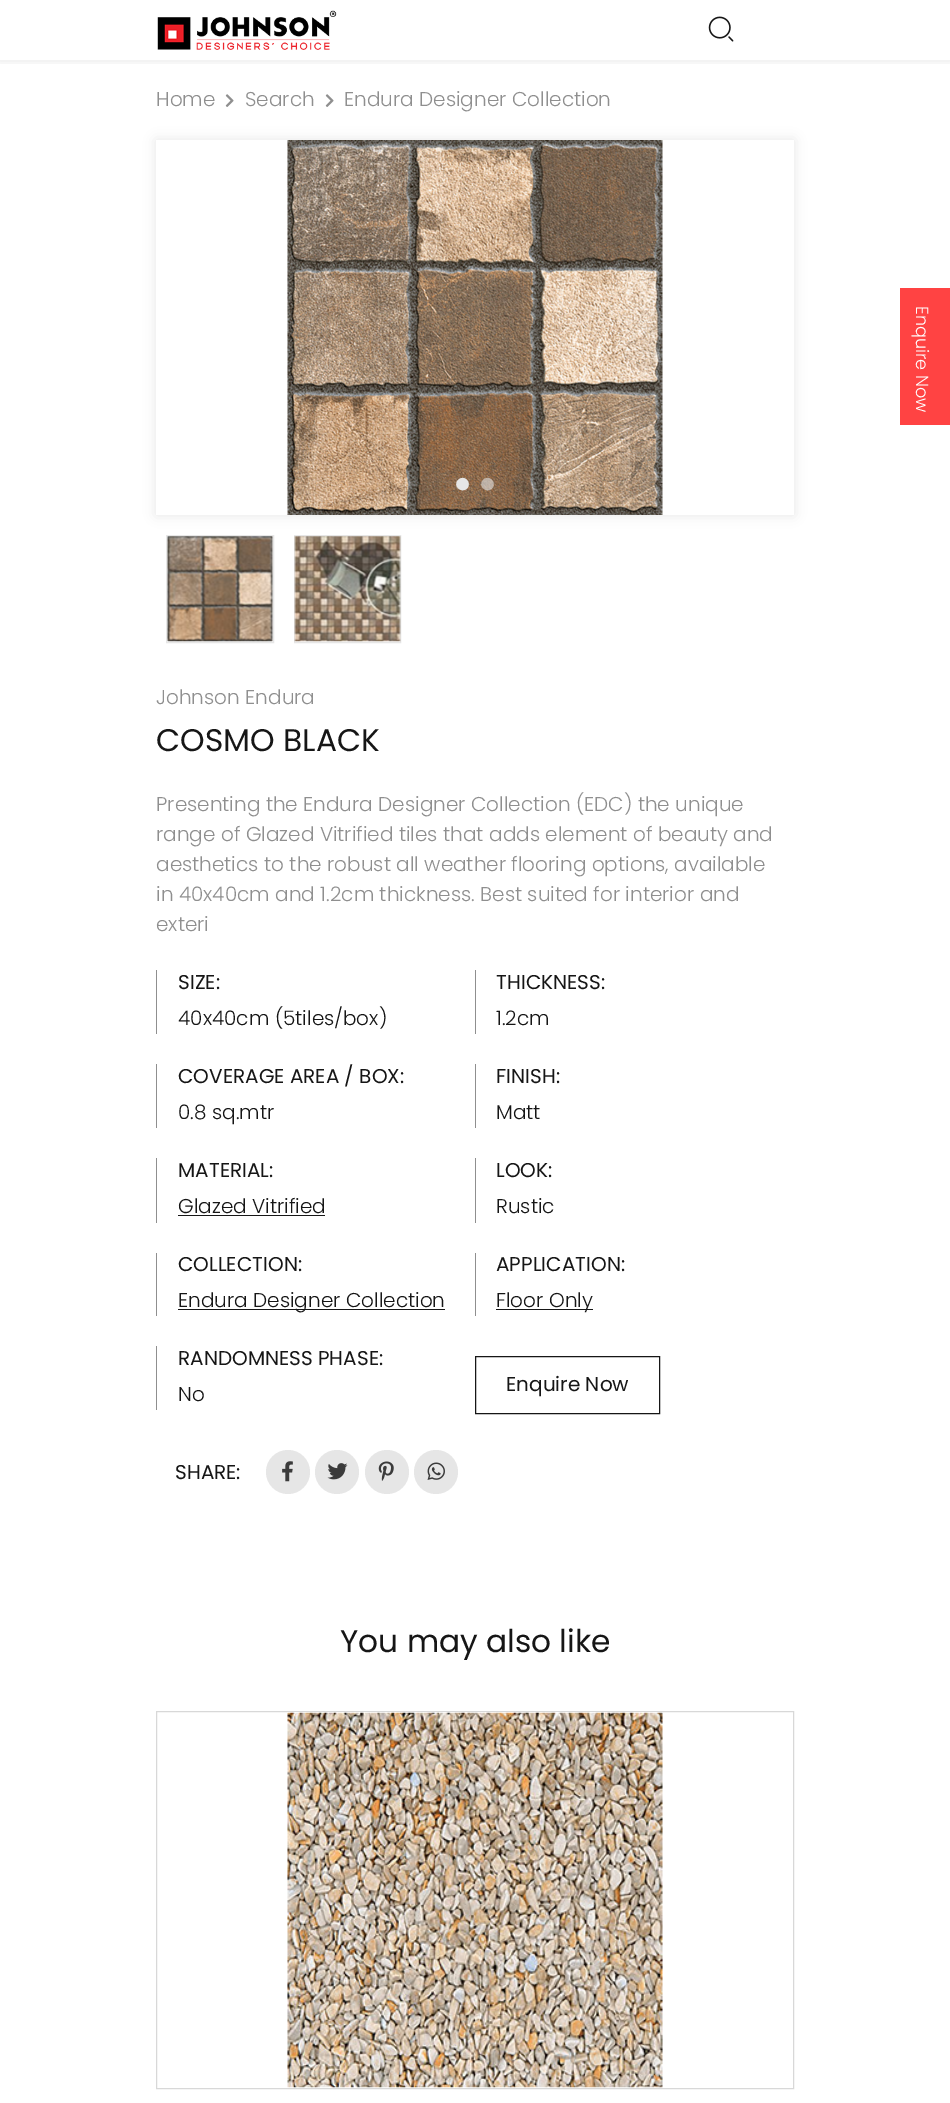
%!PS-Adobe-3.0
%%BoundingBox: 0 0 950 2103
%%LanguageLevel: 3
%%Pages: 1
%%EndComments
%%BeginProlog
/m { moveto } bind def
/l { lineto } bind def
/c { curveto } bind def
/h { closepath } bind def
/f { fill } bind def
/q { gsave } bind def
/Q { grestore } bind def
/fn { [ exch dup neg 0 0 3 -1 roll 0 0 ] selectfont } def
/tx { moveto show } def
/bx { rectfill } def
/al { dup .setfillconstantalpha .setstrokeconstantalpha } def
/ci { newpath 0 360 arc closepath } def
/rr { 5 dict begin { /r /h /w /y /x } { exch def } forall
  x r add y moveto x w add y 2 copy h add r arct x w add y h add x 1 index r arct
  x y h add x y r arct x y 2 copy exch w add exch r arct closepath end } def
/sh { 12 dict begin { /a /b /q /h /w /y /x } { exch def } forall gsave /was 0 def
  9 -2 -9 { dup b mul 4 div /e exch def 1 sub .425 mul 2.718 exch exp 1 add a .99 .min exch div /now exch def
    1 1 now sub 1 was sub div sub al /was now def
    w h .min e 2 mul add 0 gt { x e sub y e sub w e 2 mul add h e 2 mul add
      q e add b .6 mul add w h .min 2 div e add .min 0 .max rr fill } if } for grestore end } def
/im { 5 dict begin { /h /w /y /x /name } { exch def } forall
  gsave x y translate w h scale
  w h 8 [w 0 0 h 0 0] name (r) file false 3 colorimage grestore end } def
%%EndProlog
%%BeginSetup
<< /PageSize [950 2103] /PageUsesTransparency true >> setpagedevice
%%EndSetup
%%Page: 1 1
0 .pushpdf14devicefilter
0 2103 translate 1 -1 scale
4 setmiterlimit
1 setgray
0 0 950 2103 bx
q
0 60 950 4 rectclip
0.09 setgray
0 1 950 60 0 4 0.1 sh
Q
(image0.raw) 157 10 180 40 im
(image1.raw) 708 16 26 26 im
/Poppins-Light 20 fn
0.561 setgray
(Home) 156 106 tx
(image2.raw) 225 94 9 13 im
(Search) 245 106 tx
(image2.raw) 325 94 9 13 im
(Endura Designer Collection) 344 106 tx
1 0.263 0.263 setrgbcolor
900 288 50 137 bx
/Poppins-Light 17.5 fn
1 setgray
q 916 306 translate 90 rotate 0 0 m (Enquire Now) show Q
q
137 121 m 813 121 l 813 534 l 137 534 l h 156 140 m 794 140 l 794 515 l 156 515 l h eoclip newpath
0.09 setgray
156 140 638 375 0 6 0.1 sh
Q
(image3.raw) 287 140 376 375 im
0.902 setgray
458 480 m 464 474 472.5 482.5 467 488.5 c 461 494 452.5 485.5 458 480 c h f
0.6 al
483 480 m 489 474 497.5 482.5 492 488.5 c 486 494 477.5 485.5 483 480 c h f
1 al
166.5 535.5 107 107 rectstroke
(image4.raw) 167 536 106 106 im
294.5 535.5 106 107 rectstroke
(image5.raw) 294 536 107 106 im
/Poppins-Light 20 fn
0.561 setgray
(Johnson Endura) 156 704 tx
/Poppins-Regular 31.25 fn
0.086 setgray
(COSMO BLACK) 156 751 tx
/Poppins-Light 20 fn
0.561 setgray
(Presenting the Endura Designer Collection \(EDC\) the unique) 156 811 tx
(range of Glazed Vitrified tiles that adds element of beauty and) 156 841 tx
(aesthetics to the robust all weather flooring options, available) 156 871 tx
(in 40x40cm and 1.2cm thickness. Best suited for interior and) 156 901 tx
(exteri) 156 931 tx
156 970 1 64 bx
/Poppins-Regular 20 fn
0.086 setgray
(SIZE:) 178 989 tx
/Poppins-Light 20 fn
(40x40cm \(5tiles/box\)) 178 1025 tx
0.561 setgray
475 970 1 64 bx
/Poppins-Regular 20 fn
0.086 setgray
(THICKNESS:) 496 989 tx
/Poppins-Light 20 fn
(1.2cm) 496 1025 tx
0.561 setgray
156 1064 1 64 bx
/Poppins-Regular 20 fn
0.086 setgray
(COVERAGE AREA / BOX:) 178 1083 tx
/Poppins-Light 20 fn
(0.8 sq.mtr) 178 1119 tx
0.561 setgray
475 1064 1 64 bx
/Poppins-Regular 20 fn
0.086 setgray
(FINISH:) 496 1083 tx
/Poppins-Light 20 fn
(Matt) 496 1119 tx
0.561 setgray
156 1158 1 65 bx
/Poppins-Regular 20 fn
0.086 setgray
(MATERIAL:) 178 1177 tx
/Poppins-Light 20 fn
(Glazed Vitrified) 178 1213 tx
178 1215 147 1 bx
0.561 setgray
475 1158 1 65 bx
/Poppins-Regular 20 fn
0.086 setgray
(LOOK:) 496 1177 tx
/Poppins-Light 20 fn
(Rustic) 496 1213 tx
0.561 setgray
156 1253 1 63 bx
/Poppins-Regular 20 fn
0.086 setgray
(COLLECTION:) 178 1271 tx
178 1309 267 1 bx
/Poppins-Light 20 fn
(Endura Designer Collection) 178 1307 tx
0.561 setgray
475 1253 1 63 bx
/Poppins-Regular 20 fn
0.086 setgray
(APPLICATION:) 496 1271 tx
496 1309 97 1 bx
/Poppins-Light 20 fn
(Floor Only) 496 1307 tx
0.561 setgray
156 1346 1 64 bx
/Poppins-Regular 20 fn
0.086 setgray
(RANDOMNESS PHASE:) 178 1365 tx
/Poppins-Light 20 fn
(No) 178 1401 tx
475.5 1356.5 184 57 rectstroke
/Poppins-Regular 20 fn
(Enquire Now) 506 1391 tx
(SHARE:) 175 1479 tx
0.902 setgray
288 1472 22 ci f
(image6.raw) 282 1461 11 21 im
337 1472 22 ci f
(image7.raw) 327 1463 21 17 im
387 1472 22 ci f
(image8.raw) 378 1461 16 20 im
436 1472 22 ci f
(image9.raw) 427 1462 18 18 im
/Poppins-Regular 31.25 fn
0.086 setgray
(You may also like) 340 1652 tx
0.847 setgray
156.5 1711.5 637 377 rectstroke
(image10.raw) 287 1712 376 376 im
.poppdf14devicefilter showpage
%%EOF
